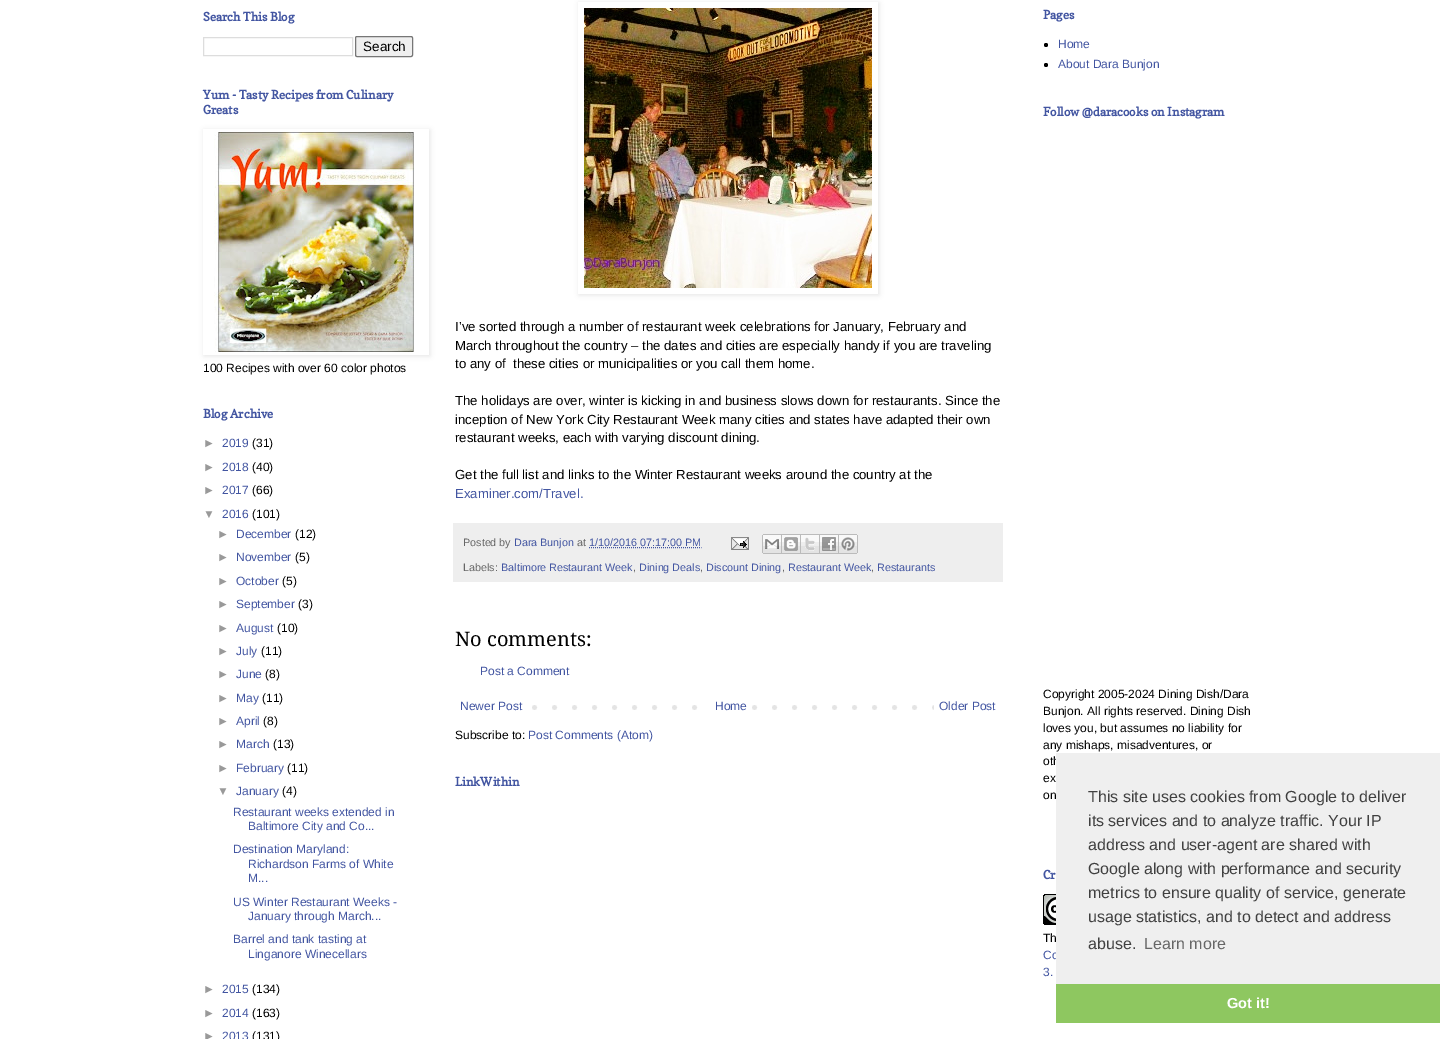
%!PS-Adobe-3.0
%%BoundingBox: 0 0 1456 1039
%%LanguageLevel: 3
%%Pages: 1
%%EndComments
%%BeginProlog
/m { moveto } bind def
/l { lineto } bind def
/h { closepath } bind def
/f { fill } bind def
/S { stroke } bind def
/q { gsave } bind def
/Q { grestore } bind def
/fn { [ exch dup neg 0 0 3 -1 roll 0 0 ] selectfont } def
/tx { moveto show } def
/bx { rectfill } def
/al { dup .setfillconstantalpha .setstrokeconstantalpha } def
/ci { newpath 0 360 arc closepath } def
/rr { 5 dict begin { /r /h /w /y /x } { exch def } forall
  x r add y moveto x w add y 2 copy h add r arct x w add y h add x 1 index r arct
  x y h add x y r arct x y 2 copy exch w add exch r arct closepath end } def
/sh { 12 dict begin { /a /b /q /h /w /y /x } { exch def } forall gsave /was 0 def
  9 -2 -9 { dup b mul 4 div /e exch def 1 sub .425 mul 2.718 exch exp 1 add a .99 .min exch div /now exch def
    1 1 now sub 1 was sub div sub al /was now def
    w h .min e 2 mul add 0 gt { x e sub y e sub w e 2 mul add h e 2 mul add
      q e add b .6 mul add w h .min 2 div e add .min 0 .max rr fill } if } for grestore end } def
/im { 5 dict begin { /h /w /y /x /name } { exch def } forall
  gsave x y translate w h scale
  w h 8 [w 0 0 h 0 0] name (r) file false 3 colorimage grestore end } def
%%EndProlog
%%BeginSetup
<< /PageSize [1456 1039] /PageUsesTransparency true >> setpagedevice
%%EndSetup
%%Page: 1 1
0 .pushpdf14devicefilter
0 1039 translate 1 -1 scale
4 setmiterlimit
1 setgray
0 0 1456 1039 bx
/Copse-Bold 12 fn
0.259 0.333 0.631 setrgbcolor
(Search This Blog) 203 21 tx
0.867 setgray
203.5 37.5 149 18 rectstroke
0.937 setgray
355.5 36.5 57 20 1.5 rr q f Q
0.463 setgray
S
/LiberationSans-Regular 13.5 fn
0 setgray
(Search) 363 51 tx
/Copse-Bold 12 fn
0.259 0.333 0.631 setrgbcolor
(Yum - Tasty Recipes from Culinary) 203 99 tx
(Greats) 203 114 tx
q
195 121 m 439 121 l 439 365 l 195 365 l h 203 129 m 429 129 l 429 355 l 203 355 l h eoclip newpath
0 setgray
204 130 226 226 0 2.5 0.1 sh
Q
(image0.raw) 214 132 200 220 im
/LiberationSans-Regular 12 fn
0 setgray
(100 Recipes with over 60 color photos) 203 372 tx
/Copse-Bold 12 fn
0.259 0.333 0.631 setrgbcolor
(Blog Archive) 203 418 tx
/LiberationSans-Regular 12 fn
0.6 setgray
(►) 203 447 tx
0.259 0.333 0.631 setrgbcolor
(2019) 222 447 tx
0 setgray
(\(31\)) 252 447 tx
0.6 setgray
(►) 203 471 tx
0.259 0.333 0.631 setrgbcolor
(2018) 222 471 tx
0 setgray
(\(40\)) 252 471 tx
0.6 setgray
(►) 203 494 tx
0.259 0.333 0.631 setrgbcolor
(2017) 222 494 tx
0 setgray
(\(66\)) 252 494 tx
0.6 setgray
(▼) 203 518 tx
0.259 0.333 0.631 setrgbcolor
(2016) 222 518 tx
0 setgray
(\(101\)) 252 518 tx
0.6 setgray
(►) 217 538 tx
0.259 0.333 0.631 setrgbcolor
(December) 236 538 tx
0 setgray
(\(12\)) 295 538 tx
0.6 setgray
(►) 217 561 tx
0.259 0.333 0.631 setrgbcolor
(November) 236 561 tx
0 setgray
(\(5\)) 295 561 tx
0.6 setgray
(►) 217 585 tx
0.259 0.333 0.631 setrgbcolor
(October) 236 585 tx
0 setgray
(\(5\)) 282 585 tx
0.6 setgray
(►) 217 608 tx
0.259 0.333 0.631 setrgbcolor
(September) 236 608 tx
0 setgray
(\(3\)) 298 608 tx
0.6 setgray
(►) 217 632 tx
0.259 0.333 0.631 setrgbcolor
(August) 236 632 tx
0 setgray
(\(10\)) 277 632 tx
0.6 setgray
(►) 217 655 tx
0.259 0.333 0.631 setrgbcolor
(July) 236 655 tx
0 setgray
(\(11\)) 261 655 tx
0.6 setgray
(►) 217 678 tx
0.259 0.333 0.631 setrgbcolor
(June) 236 678 tx
0 setgray
(\(8\)) 265 678 tx
0.6 setgray
(►) 217 702 tx
0.259 0.333 0.631 setrgbcolor
(May) 236 702 tx
0 setgray
(\(11\)) 262 702 tx
0.6 setgray
(►) 217 725 tx
0.259 0.333 0.631 setrgbcolor
(April) 236 725 tx
0 setgray
(\(8\)) 263 725 tx
0.6 setgray
(►) 217 748 tx
0.259 0.333 0.631 setrgbcolor
(March) 236 748 tx
0 setgray
(\(13\)) 273 748 tx
0.6 setgray
(►) 217 772 tx
0.259 0.333 0.631 setrgbcolor
(February) 236 772 tx
0 setgray
(\(11\)) 287 772 tx
0.6 setgray
(▼) 217 795 tx
0.259 0.333 0.631 setrgbcolor
(January) 236 795 tx
0 setgray
(\(4\)) 282 795 tx
0.259 0.333 0.631 setrgbcolor
(Restaurant weeks extended in) 233 816 tx
(Baltimore City and Co...) 248 830 tx
(Destination Maryland:) 233 853 tx
(Richardson Farms of White) 248 868 tx
(M...) 248 882 tx
(US Winter Restaurant Weeks -) 233 906 tx
(January through March...) 248 920 tx
(Barrel and tank tasting at) 233 943 tx
(Linganore Winecellars) 248 958 tx
0.6 setgray
(►) 203 993 tx
0.259 0.333 0.631 setrgbcolor
(2015) 222 993 tx
0 setgray
(\(134\)) 252 993 tx
0.6 setgray
(►) 203 1017 tx
0.259 0.333 0.631 setrgbcolor
(2014) 222 1017 tx
0 setgray
(\(163\)) 252 1017 tx
0.6 setgray
(►) 203 1040 tx
0.259 0.333 0.631 setrgbcolor
(2013) 222 1040 tx
0 setgray
(\(131\)) 252 1040 tx
q
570 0 m 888 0 l 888 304 l 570 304 l h 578 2 m 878 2 l 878 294 l 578 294 l h eoclip newpath
579 3 300 292 0 2.5 0.1 sh
Q
(image1.raw) 584 8 288 280 im
/LiberationSans-Regular 13.2 fn
(I’ve sorted through a number of restaurant week celebrations for January, February and) 455 331 tx
(March throughout the country – the dates and cities are especially handy if you are traveling) 455 350 tx
(to any of  these cities or municipalities or you call them home.) 455 368 tx
(The holidays are over, winter is kicking in and business slows down for restaurants. Since the) 455 405 tx
(inception of New York City Restaurant Week many cities and states have adapted their own) 455 424 tx
(restaurant weeks, each with varying discount dining.) 455 442 tx
(Get the full list and links to the Winter Restaurant weeks around the country at the) 455 479 tx
0.259 0.333 0.631 setrgbcolor
(Examiner.com/Travel.) 455 498 tx
0.933 setgray
453 523 550 59 bx
/LiberationSans-Regular 10.75 fn
0.4 setgray
(Posted by) 463 546 tx
0.259 0.333 0.631 setrgbcolor
(Dara Bunjon) 514 546 tx
0.4 setgray
(at) 577 546 tx
0.259 0.333 0.631 setrgbcolor
(1/10/2016 07:17:00 PM) 589 546 tx
[1 1] 0 setdash
589 547.5 m 701.5 547.5 l S
(image2.raw) 731 537 18 13 im
(image3.raw) 762 534 20 20 im
(image4.raw) 782 534 19 20 im
(image5.raw) 801 534 19 20 im
(image6.raw) 820 534 19 20 im
(image7.raw) 839 534 19 20 im
0.4 setgray
(Labels:) 463 571 tx
0.259 0.333 0.631 setrgbcolor
(Baltimore Restaurant Week) 501 571 tx
0.4 setgray
(,) 633 571 tx
0.259 0.333 0.631 setrgbcolor
(Dining Deals) 639 571 tx
0.4 setgray
(,) 700 571 tx
0.259 0.333 0.631 setrgbcolor
(Discount Dining) 706 571 tx
0.4 setgray
(,) 782 571 tx
0.259 0.333 0.631 setrgbcolor
(Restaurant Week) 788 571 tx
0.4 setgray
(,) 871 571 tx
0.259 0.333 0.631 setrgbcolor
(Restaurants) 877 571 tx
/DroidSerif-Regular 20 fn
0 setgray
(No comments:) 455 646 tx
/LiberationSans-Regular 12 fn
0.259 0.333 0.631 setrgbcolor
(Post a Comment) 480 675 tx
(image8.raw) 532 705 402 5 im
(Newer Post) 460 710 tx
1 setgray
712 705 26 5 bx
0.259 0.333 0.631 setrgbcolor
(Home) 715 710 tx
(Older Post) 939 710 tx
0 setgray
(Subscribe to:) 455 739 tx
0.259 0.333 0.631 setrgbcolor
(Post Comments \(Atom\)) 528 739 tx
/Copse-Bold 12 fn
(LinkWithin) 455 786 tx
(Pages) 1043 19 tx
0 setgray
1046 45 2 ci f
/LiberationSans-Regular 12 fn
0.259 0.333 0.631 setrgbcolor
(Home) 1058 48 tx
0 setgray
1046 65 2 ci f
0.259 0.333 0.631 setrgbcolor
(About Dara Bunjon) 1058 68 tx
/Copse-Bold 12 fn
(Follow @daracooks on Instagram) 1043 116 tx
/LiberationSans-Regular 12 fn
0 setgray
(Copyright 2005-2024 Dining Dish/Dara) 1043 698 tx
(Bunjon. All rights reserved. Dining Dish) 1043 715 tx
(loves you, but assumes no liability for) 1043 732 tx
(any mishaps, misadventures, or) 1043 749 tx
(oth) 1043 765 tx
(ex) 1043 782 tx
(on) 1043 799 tx
/Copse-Bold 12 fn
0.259 0.333 0.631 setrgbcolor
(Cr) 1043 879 tx
(image9.raw) 1043 894 13 31 im
/LiberationSans-Regular 12 fn
0 setgray
(Th) 1043 942 tx
0.259 0.333 0.631 setrgbcolor
(Co) 1043 959 tx
(3.) 1043 976 tx
0.937 setgray
1056 753 384 231 bx
/LiberationSans-Regular 16 fn
0.251 setgray
(This site uses cookies from Google to deliver) 1088 802 tx
(its services and to analyze traffic. Your IP) 1088 826 tx
(address and user-agent are shared with) 1088 850 tx
(Google along with performance and security) 1088 874 tx
(metrics to ensure quality of service, generate) 1088 898 tx
(usage statistics, and to detect and address) 1088 922 tx
(abuse.) 1088 949 tx
0.4 setgray
(Learn more) 1144 949 tx
0.557 0.78 0.376 setrgbcolor
1056 984 384 39 bx
/LiberationSans-Bold 14.5 fn
1 setgray
(Got it!) 1227 1008 tx
.poppdf14devicefilter showpage
%%EOF
